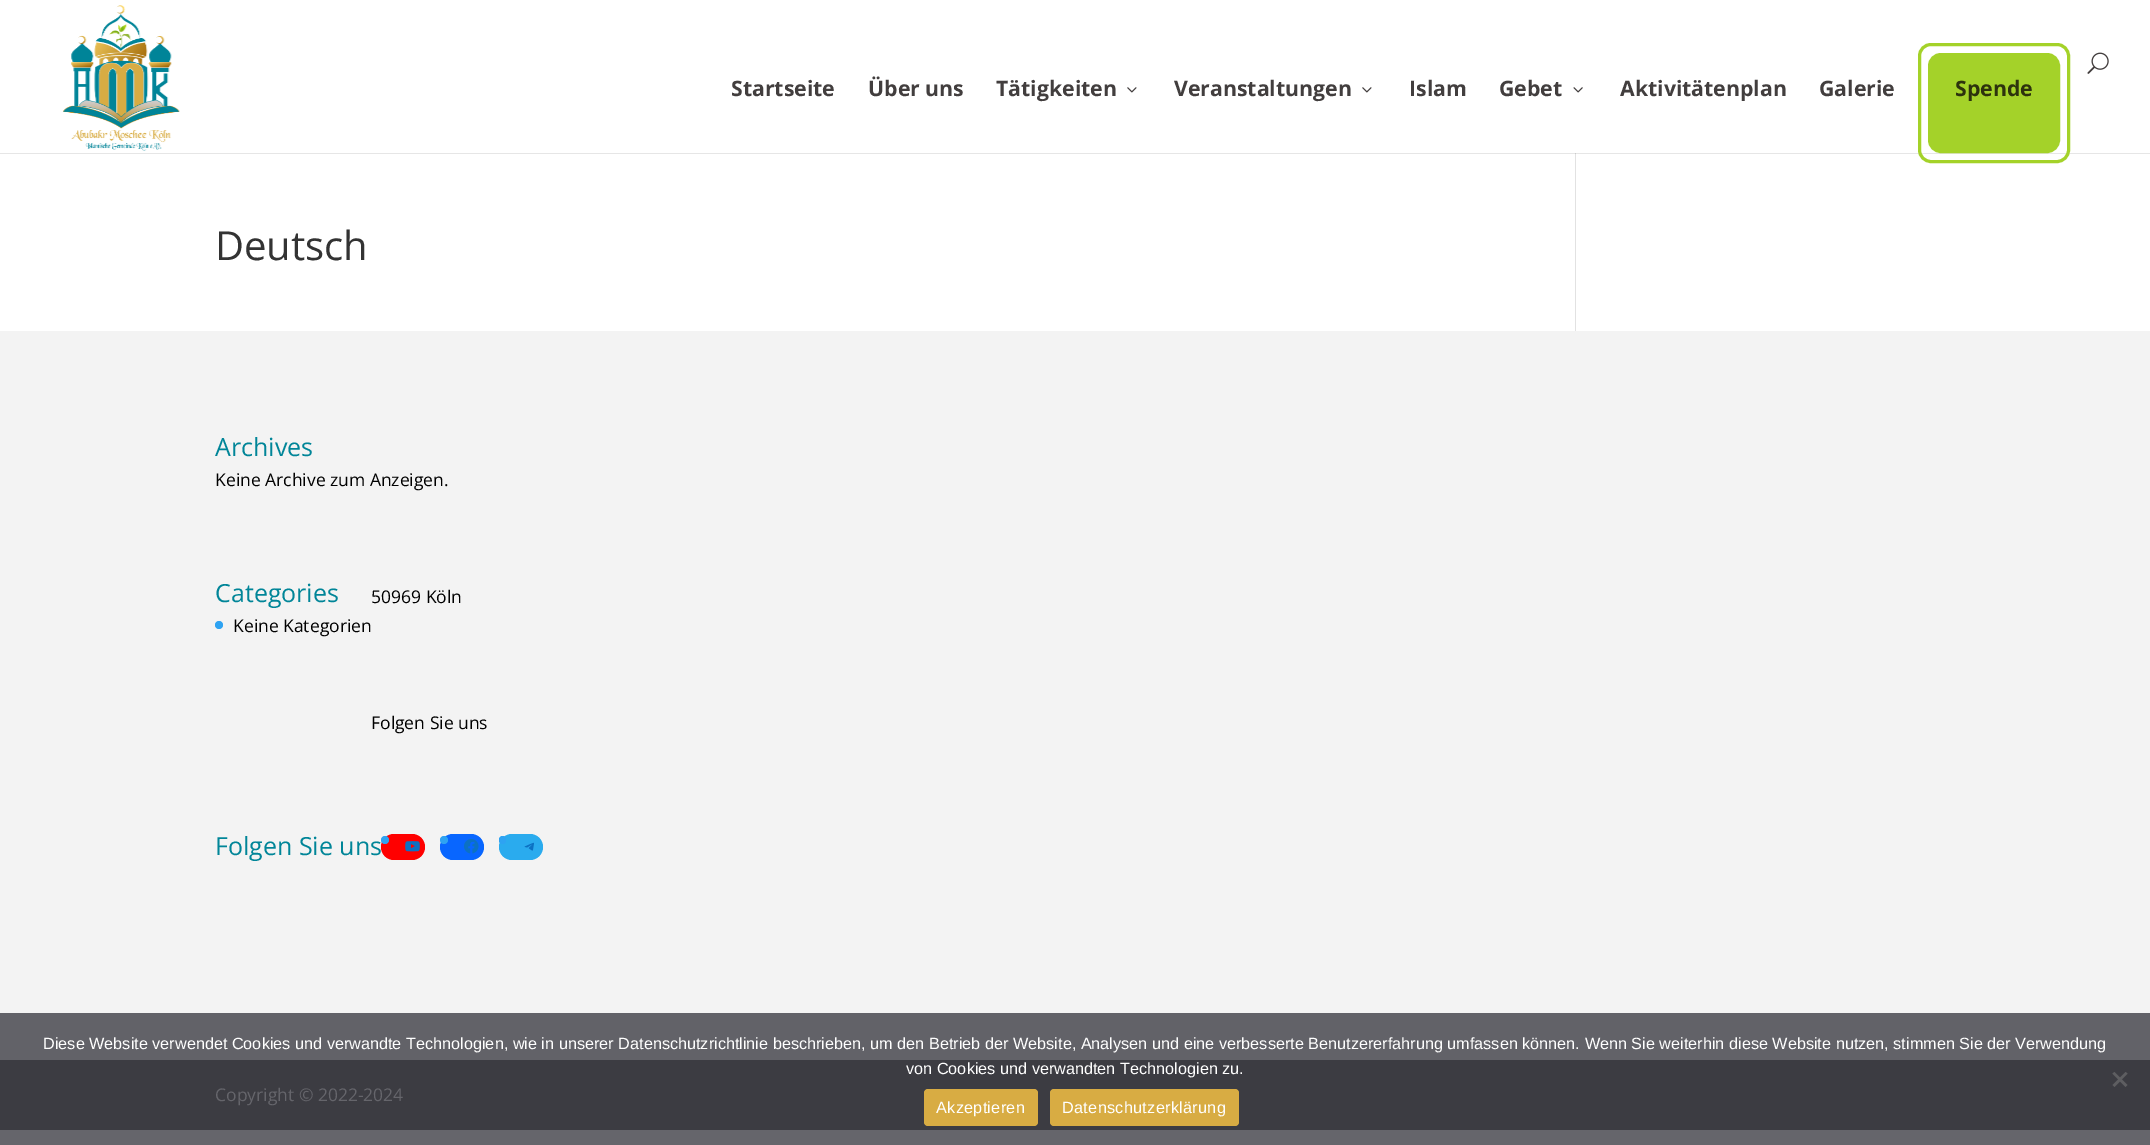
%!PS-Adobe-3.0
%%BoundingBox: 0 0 2150 1145
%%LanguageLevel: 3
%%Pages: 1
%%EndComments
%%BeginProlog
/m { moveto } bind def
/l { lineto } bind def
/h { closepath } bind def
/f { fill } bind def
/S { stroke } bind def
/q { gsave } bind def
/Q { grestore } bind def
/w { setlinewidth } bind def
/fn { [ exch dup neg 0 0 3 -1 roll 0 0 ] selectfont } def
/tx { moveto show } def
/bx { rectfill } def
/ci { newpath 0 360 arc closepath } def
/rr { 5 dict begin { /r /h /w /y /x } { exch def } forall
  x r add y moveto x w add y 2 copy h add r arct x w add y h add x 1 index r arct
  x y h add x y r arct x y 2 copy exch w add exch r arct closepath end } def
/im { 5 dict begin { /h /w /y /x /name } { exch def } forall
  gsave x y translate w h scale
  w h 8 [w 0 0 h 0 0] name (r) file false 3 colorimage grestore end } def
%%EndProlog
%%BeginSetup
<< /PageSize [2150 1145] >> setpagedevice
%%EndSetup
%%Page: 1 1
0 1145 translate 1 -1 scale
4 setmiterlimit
1 setgray
0 0 2150 1145 bx
0.396 0.396 0.42 setrgbcolor
0 1130 2150 15 bx
0.902 setgray
0 153 2150 1 bx
(image0.raw) 62 5 118 146 im
(image1.raw) 2087 52 22 22 im
/OpenSans-Bold 21.25 fn
0.259 0.243 0.243 setrgbcolor
(Startseite) 731 96 tx
(Über uns) 868 96 tx
(Tätigkeiten) 996 96 tx
(image2.raw) 1127 87 10 6 im
(Veranstaltungen) 1174 96 tx
(image2.raw) 1362 87 10 6 im
(Islam) 1409 96 tx
(Gebet) 1499 96 tx
(image3.raw) 1573 87 10 6 im
(Aktivitätenplan) 1620 96 tx
(Galerie) 1819 96 tx
0.643 0.824 0.161 setrgbcolor
1929.5 54.5 129 97 11.5 rr q f Q
3 w
S
1919.5 44.5 149 117 11.5 rr S
0.176 0.2 0.051 setrgbcolor
(Spende) 1955 96 tx
/OpenSans-Regular 40 fn
0.2 setgray
(Deutsch) 215 260 tx
0.886 setgray
1575 153 1 178 bx
0.796 setgray
1575 153 1 1 bx
0.953 setgray
0 331 2150 682 bx
0.384 0.384 0.408 setrgbcolor
0 1013 2150 47 bx
/OpenSans-Regular 25 fn
0 0.522 0.596 setrgbcolor
(Archives) 215 456 tx
/OpenSans-Regular 17.5 fn
0 setgray
(Keine Archive zum Anzeigen.) 215 486 tx
/OpenSans-Regular 25 fn
0 0.522 0.596 setrgbcolor
(Categories) 215 602 tx
0.18 0.639 0.949 setrgbcolor
219 625 4 ci f
/OpenSans-Regular 17.5 fn
0 setgray
(Keine Kategorien) 233 632 tx
(50969 Köln) 371 603 tx
(Folgen Sie uns) 371 729 tx
/OpenSans-Regular 25 fn
0 0.522 0.596 setrgbcolor
(Folgen Sie uns) 215 855 tx
1 0 0 setrgbcolor
381 834 44 26 13 rr f
0.18 0.639 0.949 setrgbcolor
385 840 4 ci f
(image4.raw) 405 841 15 11 im
0.031 0.4 1 setrgbcolor
440 834 44 26 13 rr f
0.18 0.639 0.949 setrgbcolor
444 840 4 ci f
(image5.raw) 464 839 15 15 im
0.165 0.671 0.933 setrgbcolor
499 834 44 26 13 rr f
0.18 0.639 0.949 setrgbcolor
499 836 7 8 3.5 rr f
(image6.raw) 524 842 10 9 im
0.235 0.235 0.259 setrgbcolor
0 1060 2150 70 bx
/OpenSans-Regular 17.5 fn
0.396 0.396 0.42 setrgbcolor
(Copyright © 2022-2024) 215 1101 tx
/LiberationSans-Regular 16.25 fn
1 setgray
(Diese Website verwendet Cookies und verwandte Technologien, wie in unserer Datenschutzrichtlinie beschrieben, um den Betrieb der Website, Analysen und eine verbesserte Benutzererfahrung umfassen können. Wenn Sie weiterhin diese Website nutzen, stimmen Sie der Verwendung) 43 1049 tx
(von Cookies und verwandten Technologien zu.) 906 1074 tx
0.369 0.369 0.38 setrgbcolor
2125.5 1072 m 2127.5 1073.5 l 2114.5 1087 l 2112.5 1085 l h f
2112.5 1073.5 m 2114.5 1072 l 2127.5 1085 l 2125.5 1087 l h f
0.847 0.675 0.263 setrgbcolor
924 1089 114 37 4 rr f
1 setgray
936 1113 m 0.3 0 (Akzeptieren) ashow
0.847 0.675 0.263 setrgbcolor
1050 1089 189 37 4 rr f
1 setgray
1062 1113 m 0.3 0 (Datenschutzerklärung) ashow
showpage
%%EOF
